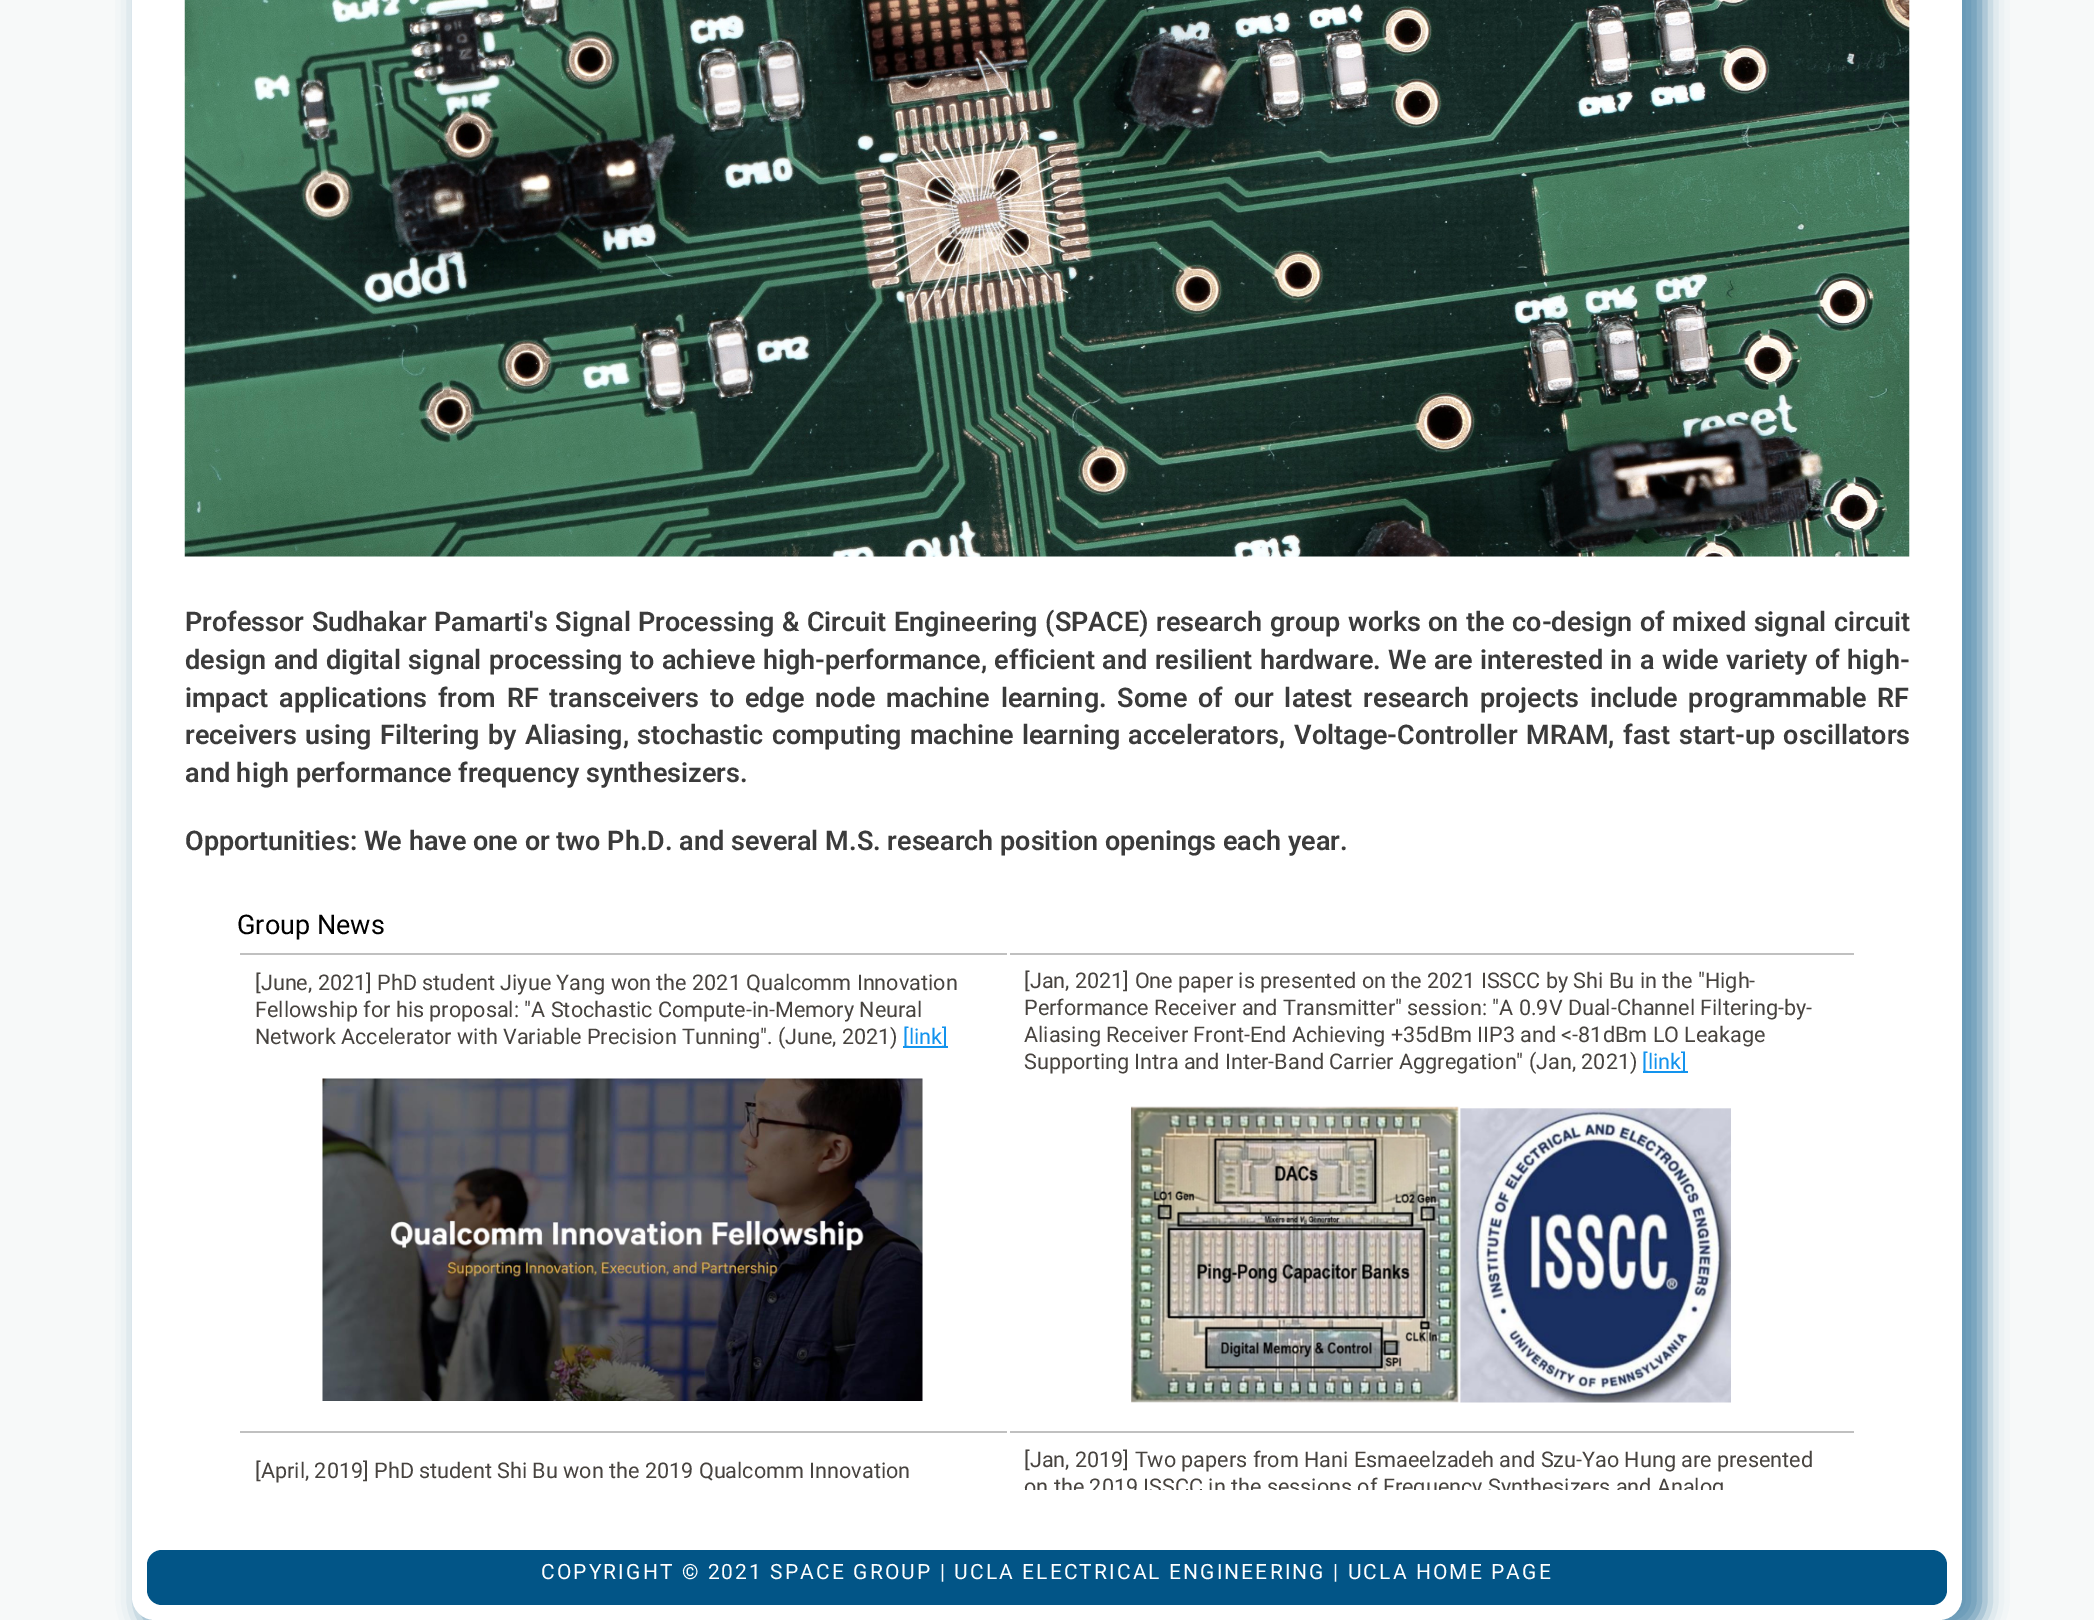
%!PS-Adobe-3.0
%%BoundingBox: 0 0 2094 1620
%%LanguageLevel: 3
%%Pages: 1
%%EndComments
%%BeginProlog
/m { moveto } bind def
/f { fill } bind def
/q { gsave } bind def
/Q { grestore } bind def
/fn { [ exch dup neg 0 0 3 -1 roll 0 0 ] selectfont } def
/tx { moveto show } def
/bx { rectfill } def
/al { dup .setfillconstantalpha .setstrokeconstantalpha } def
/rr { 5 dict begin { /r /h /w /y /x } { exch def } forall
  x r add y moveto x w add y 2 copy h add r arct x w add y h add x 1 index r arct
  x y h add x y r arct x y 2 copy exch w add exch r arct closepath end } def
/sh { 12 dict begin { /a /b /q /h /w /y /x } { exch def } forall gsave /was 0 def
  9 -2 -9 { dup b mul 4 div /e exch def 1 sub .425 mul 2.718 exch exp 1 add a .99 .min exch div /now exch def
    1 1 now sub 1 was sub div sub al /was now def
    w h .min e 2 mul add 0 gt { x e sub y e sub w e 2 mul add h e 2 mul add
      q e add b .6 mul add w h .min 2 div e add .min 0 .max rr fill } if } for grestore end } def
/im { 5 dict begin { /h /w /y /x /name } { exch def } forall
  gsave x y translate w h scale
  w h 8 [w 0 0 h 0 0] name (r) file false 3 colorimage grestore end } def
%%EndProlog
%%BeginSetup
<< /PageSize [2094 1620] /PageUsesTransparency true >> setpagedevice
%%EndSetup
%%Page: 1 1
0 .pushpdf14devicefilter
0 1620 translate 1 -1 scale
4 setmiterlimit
0.969 0.976 0.976 setrgbcolor
0 0 2094 1620 bx
0 0.333 0.529 setrgbcolor
140 -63 1845 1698 30 11 0.6 sh
1 setgray
132 -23 1830 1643 23 rr f
(image0.raw) 184 0 1726 557 im
/Roboto-SemiBold 27 fn
0.231 setgray
185 631 m 0.75 0 32 (Professor Sudhakar Pamarti's Signal Processing & Circuit Engineering \(SPACE\) research group works on the co-design of mixed signal circuit) widthshow
185 669 m 0.75 0 32 (design and digital signal processing to achieve high-performance, efficient and resilient hardware. We are interested in a wide variety of high-) widthshow
185 707 m 4.1 0 32 (impact applications from RF transceivers to edge node machine learning. Some of our latest research projects include programmable RF) widthshow
185 744 m 1.7 0 32 (receivers using Filtering by Aliasing, stochastic computing machine learning accelerators, Voltage-Controller MRAM, fast start-up oscillators) widthshow
(and high performance frequency synthesizers.) 185 782 tx
(Opportunities: We have one or two Ph.D. and several M.S. research position openings each year.) 185 850 tx
/Roboto-Regular 27 fn
0 setgray
(Group News) 237 934 tx
0.753 setgray
240 953 767 2 bx
/Roboto-Regular 21.6 fn
0.278 0.263 0.247 setrgbcolor
([June, 2021] PhD student Jiyue Yang won the 2021 Qualcomm Innovation) 255 990 tx
(Fellowship for his proposal: "A Stochastic Compute-in-Memory Neural) 255 1017 tx
(Network Accelerator with Variable Precision Tunning". \(June, 2021\)) 255 1044 tx
0.071 0.576 0.933 setrgbcolor
903 1046 45 2 bx
([link]) 903 1044 tx
(image1.raw) 322 1078 601 323 im
0.753 setgray
1010 953 844 2 bx
0.278 0.263 0.247 setrgbcolor
([Jan, 2021] One paper is presented on the 2021 ISSCC by Shi Bu in the "High-) 1024 988 tx
(Performance Receiver and Transmitter" session: "A 0.9V Dual-Channel Filtering-by-) 1024 1015 tx
(Aliasing Receiver Front-End Achieving +35dBm IIP3 and <-81dBm LO Leakage) 1024 1042 tx
(Supporting Intra and Inter-Band Carrier Aggregation" \(Jan, 2021\)) 1024 1069 tx
0.071 0.576 0.933 setrgbcolor
1643 1071 45 2 bx
([link]) 1642 1069 tx
(image2.raw) 1131 1106 600 297 im
0.753 setgray
240 1431 767 2 bx
0.278 0.263 0.247 setrgbcolor
([April, 2019] PhD student Shi Bu won the 2019 Qualcomm Innovation) 255 1478 tx
0.753 setgray
1010 1431 844 2 bx
0.278 0.263 0.247 setrgbcolor
([Jan, 2019] Two papers from Hani Esmaeelzadeh and Szu-Yao Hung are presented) 1024 1467 tx
q
200 890 1695 600 rectclip
(on the 2019 ISSCC in the sessions of Frequency Synthesizers and Analog) 1024 1494 tx
Q
0.008 0.333 0.529 setrgbcolor
147 1550 1800 55 15 rr f
/Roboto-Regular 21 fn
1 setgray
541 1579 m 2.1 0 (COPYRIGHT © 2021 SPACE GROUP | UCLA ELECTRICAL ENGINEERING | UCLA HOME PAGE) ashow
.poppdf14devicefilter showpage
%%EOF
